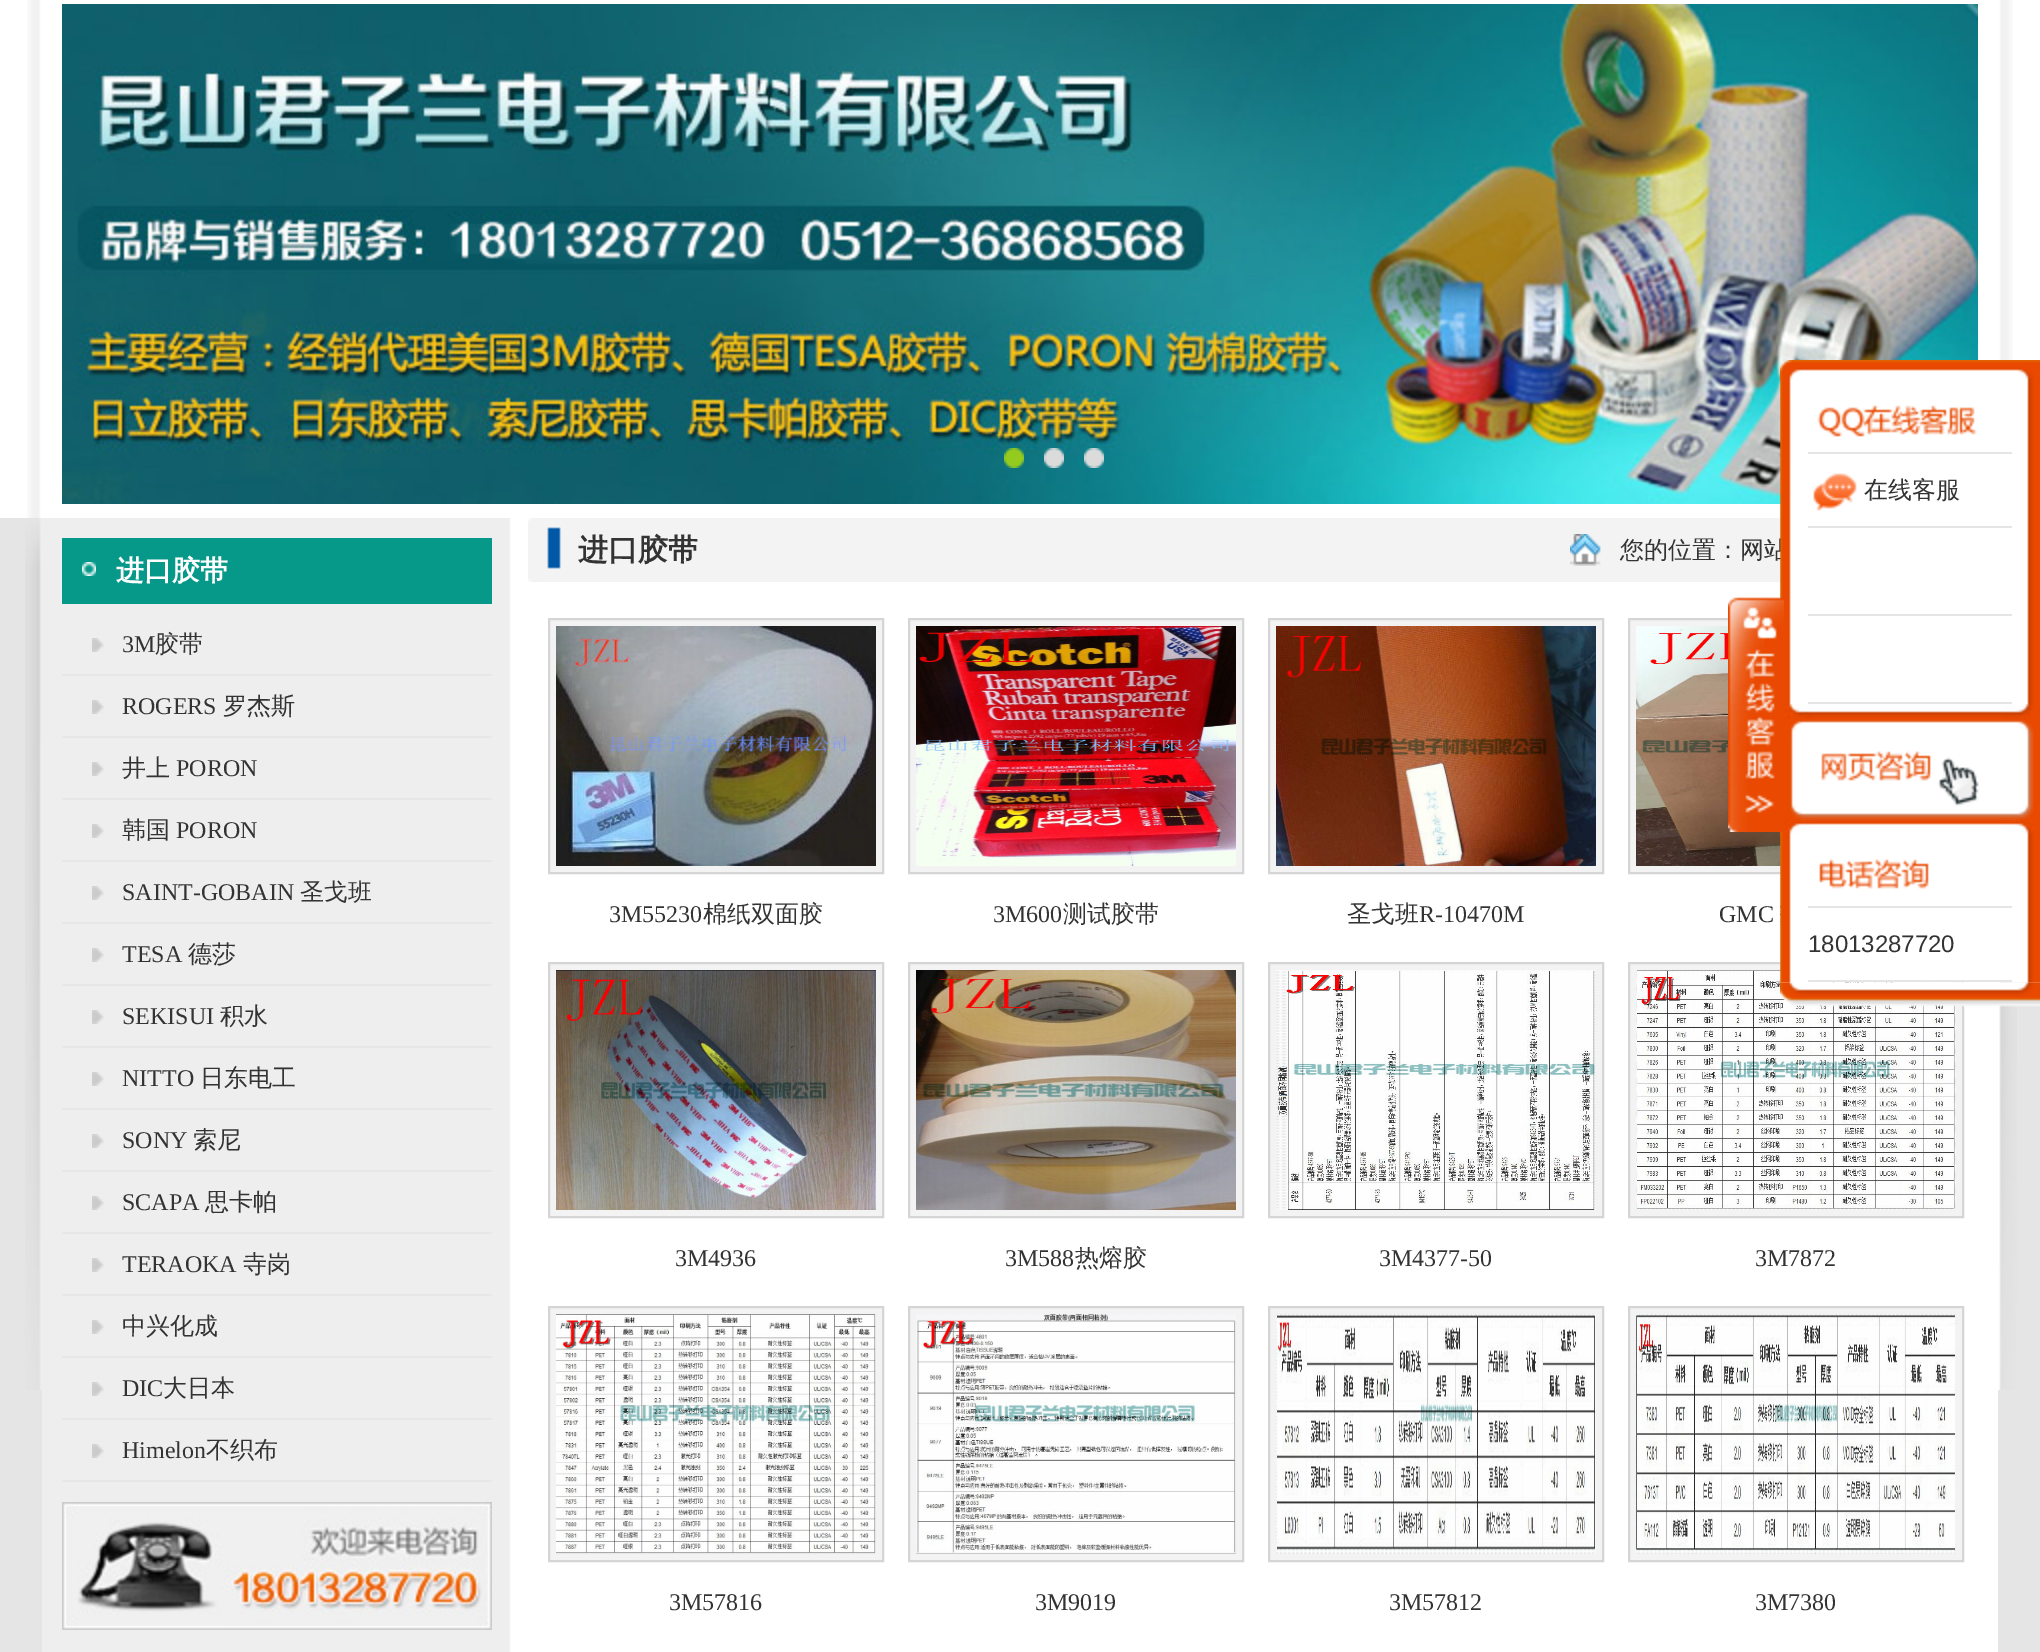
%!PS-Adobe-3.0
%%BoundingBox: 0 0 2040 1652
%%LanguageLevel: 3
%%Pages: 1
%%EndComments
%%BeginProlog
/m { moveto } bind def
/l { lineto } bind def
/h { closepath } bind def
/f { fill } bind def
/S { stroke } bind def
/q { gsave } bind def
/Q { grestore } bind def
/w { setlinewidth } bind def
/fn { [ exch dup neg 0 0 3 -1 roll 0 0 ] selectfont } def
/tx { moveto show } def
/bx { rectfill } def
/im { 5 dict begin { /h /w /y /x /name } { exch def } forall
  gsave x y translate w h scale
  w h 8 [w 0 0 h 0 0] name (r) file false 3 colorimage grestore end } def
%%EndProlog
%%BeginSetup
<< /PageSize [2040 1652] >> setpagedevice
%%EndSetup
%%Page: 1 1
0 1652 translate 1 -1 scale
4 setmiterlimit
1 setgray
0 0 2040 1652 bx
(image0.raw) 27 0 1986 518 im
(image1.raw) 62 4 1916 500 im
(image2.raw) 1004 448 20 20 im
(image3.raw) 1044 448 20 20 im
(image4.raw) 1084 448 20 20 im
0.898 setgray
0 518 2040 1134 bx
(image5.raw) 25 518 1992 872 im
(image6.raw) 42 518 1956 1134 im
0.024 0.596 0.533 setrgbcolor
62 538 430 66 bx
(image7.raw) 82 562 14 14 im
/WenQuanYiZenHei-Bold 28 fn
1 setgray
(进口胶带) 116 580 tx
(image8.raw) 92 638 12 14 im
0.906 setgray
62 674 430 2 bx
/LiberationSerif-Regular 24 fn
0.2 setgray
(3M) 122 652 tx
/WenQuanYiZenHei-Medium 24 fn
(胶带) 155 652 tx
(image8.raw) 92 700 12 14 im
0.906 setgray
62 736 430 2 bx
/LiberationSerif-Regular 24 fn
0.2 setgray
(ROGERS) 122 714 tx
/WenQuanYiZenHei-Medium 24 fn
(罗杰斯) 223 714 tx
(image8.raw) 92 762 12 14 im
0.906 setgray
62 798 430 2 bx
0.2 setgray
(井上) 122 776 tx
/LiberationSerif-Regular 24 fn
(PORON) 176 776 tx
(image8.raw) 92 824 12 14 im
0.906 setgray
62 860 430 2 bx
/WenQuanYiZenHei-Medium 24 fn
0.2 setgray
(韩国) 122 838 tx
/LiberationSerif-Regular 24 fn
(PORON) 176 838 tx
(image8.raw) 92 886 12 14 im
0.906 setgray
62 922 430 2 bx
0.2 setgray
(SAINT-GOBAIN) 122 900 tx
/WenQuanYiZenHei-Medium 24 fn
(圣戈班) 300 900 tx
(image8.raw) 92 948 12 14 im
0.906 setgray
62 984 430 2 bx
/LiberationSerif-Regular 24 fn
0.2 setgray
(TESA) 122 962 tx
/WenQuanYiZenHei-Medium 24 fn
(德莎) 188 962 tx
(image8.raw) 92 1010 12 14 im
0.906 setgray
62 1046 430 2 bx
/LiberationSerif-Regular 24 fn
0.2 setgray
(SEKISUI) 122 1024 tx
/WenQuanYiZenHei-Medium 24 fn
(积水) 220 1024 tx
(image8.raw) 92 1072 12 14 im
0.906 setgray
62 1108 430 2 bx
/LiberationSerif-Regular 24 fn
0.2 setgray
(NITTO) 122 1086 tx
/WenQuanYiZenHei-Medium 24 fn
(日东电工) 200 1086 tx
(image8.raw) 92 1134 12 14 im
0.906 setgray
62 1170 430 2 bx
/LiberationSerif-Regular 24 fn
0.2 setgray
(SONY) 122 1148 tx
/WenQuanYiZenHei-Medium 24 fn
(索尼) 193 1148 tx
(image8.raw) 92 1196 12 14 im
0.906 setgray
62 1232 430 2 bx
/LiberationSerif-Regular 24 fn
0.2 setgray
(SCAPA) 122 1210 tx
/WenQuanYiZenHei-Medium 24 fn
(思卡帕) 205 1210 tx
(image8.raw) 92 1258 12 14 im
0.906 setgray
62 1294 430 2 bx
/LiberationSerif-Regular 24 fn
0.2 setgray
(TERAOKA) 122 1272 tx
/WenQuanYiZenHei-Medium 24 fn
(寺岗) 243 1272 tx
(image8.raw) 92 1320 12 14 im
0.906 setgray
62 1356 430 2 bx
0.2 setgray
(中兴化成) 122 1334 tx
(image8.raw) 92 1382 12 14 im
0.906 setgray
62 1418 430 2 bx
/LiberationSerif-Regular 24 fn
0.2 setgray
(DIC) 122 1396 tx
/WenQuanYiZenHei-Medium 24 fn
(大日本) 163 1396 tx
(image8.raw) 92 1444 12 14 im
0.906 setgray
62 1480 430 2 bx
/LiberationSerif-Regular 24 fn
0.2 setgray
(Himelon) 122 1458 tx
/WenQuanYiZenHei-Medium 24 fn
(不织布) 206 1458 tx
(image9.raw) 62 1502 430 128 im
(image10.raw) 561 518 1220 64 im
(image11.raw) 528 518 33 64 im
/WenQuanYiZenHei-Bold 30 fn
(进口胶带) 578 560 tx
(image12.raw) 1570 534 31 32 im
/WenQuanYiZenHei-Medium 24 fn
(您的位置：网站) 1620 558 tx
0.953 setgray
549 619 m 883 619 l 883 873 l 549 873 l h q f Q
0.835 setgray
2 w
S
(image13.raw) 556 626 320 240 im
/LiberationSerif-Regular 24 fn
0.2 setgray
(3M55230) 609 922 tx
/WenQuanYiZenHei-Medium 24 fn
(棉纸双面胶) 703 922 tx
0.953 setgray
909 619 m 1243 619 l 1243 873 l 909 873 l h q f Q
0.835 setgray
S
(image14.raw) 916 626 320 240 im
/LiberationSerif-Regular 24 fn
0.2 setgray
(3M600) 993 922 tx
/WenQuanYiZenHei-Medium 24 fn
(测试胶带) 1063 922 tx
0.953 setgray
1269 619 m 1603 619 l 1603 873 l 1269 873 l h q f Q
0.835 setgray
S
(image15.raw) 1276 626 320 240 im
0.2 setgray
(圣戈班) 1347 922 tx
/LiberationSerif-Regular 24 fn
(R-10470M) 1419 922 tx
0.953 setgray
1630 620 151 252 bx
0.835 setgray
1629 619 334 254 rectstroke
(image16.raw) 1636 626 145 240 im
0.2 setgray
(GMC) 1719 922 tx
0.953 setgray
549 963 m 883 963 l 883 1217 l 549 1217 l h q f Q
0.835 setgray
S
(image17.raw) 556 970 320 240 im
0.2 setgray
(3M4936) 675 1266 tx
0.953 setgray
909 963 m 1243 963 l 1243 1217 l 909 1217 l h q f Q
0.835 setgray
S
(image18.raw) 916 970 320 240 im
0.2 setgray
(3M588) 1005 1266 tx
/WenQuanYiZenHei-Medium 24 fn
(热熔胶) 1075 1266 tx
0.953 setgray
1269 963 m 1603 963 l 1603 1217 l 1269 1217 l h q f Q
0.835 setgray
S
(image19.raw) 1276 970 320 240 im
/LiberationSerif-Regular 24 fn
0.2 setgray
(3M4377-50) 1379 1266 tx
0.953 setgray
1629 963 m 1963 963 l 1963 1217 l 1629 1217 l h q f Q
0.835 setgray
S
(image20.raw) 1636 970 320 240 im
0.2 setgray
(3M7872) 1755 1266 tx
0.953 setgray
549 1307 m 883 1307 l 883 1561 l 549 1561 l h q f Q
0.835 setgray
S
(image21.raw) 556 1314 320 240 im
0.2 setgray
(3M57816) 669 1610 tx
0.953 setgray
909 1307 m 1243 1307 l 1243 1561 l 909 1561 l h q f Q
0.835 setgray
S
(image22.raw) 916 1314 320 240 im
0.2 setgray
(3M9019) 1035 1610 tx
0.953 setgray
1269 1307 m 1603 1307 l 1603 1561 l 1269 1561 l h q f Q
0.835 setgray
S
(image23.raw) 1276 1314 320 240 im
0.2 setgray
(3M57812) 1389 1610 tx
0.953 setgray
1629 1307 m 1963 1307 l 1963 1561 l 1629 1561 l h q f Q
0.835 setgray
S
(image24.raw) 1636 1314 320 240 im
0.2 setgray
(3M7380) 1755 1610 tx
(image26.raw) 1780 981 260 26 im
(image28.raw) 1780 380 260 602 im
(image31.raw) 1780 704 254 130 im
(image25.raw) 1728 597 56 235 im
(image27.raw) 1780 360 260 20 im
0.902 0.898 0.894 setrgbcolor
1808 452 204 2 bx
(image29.raw) 1817 405 160 32 im
1808 526 204 2 bx
(image30.raw) 1813 473 44 38 im
/WenQuanYiZenHei-Medium 24 fn
0.2 setgray
(在线客服) 1864 498 tx
0.902 0.898 0.894 setrgbcolor
1808 614 204 2 bx
1808 702 204 2 bx
(image32.raw) 1790 720 244 100 im
1808 906 204 2 bx
(image33.raw) 1819 859 111 30 im
1808 980 204 2 bx
/LiberationSans-Regular 24 fn
0.2 setgray
(18013287720) 1808 952 tx
showpage
%%EOF
